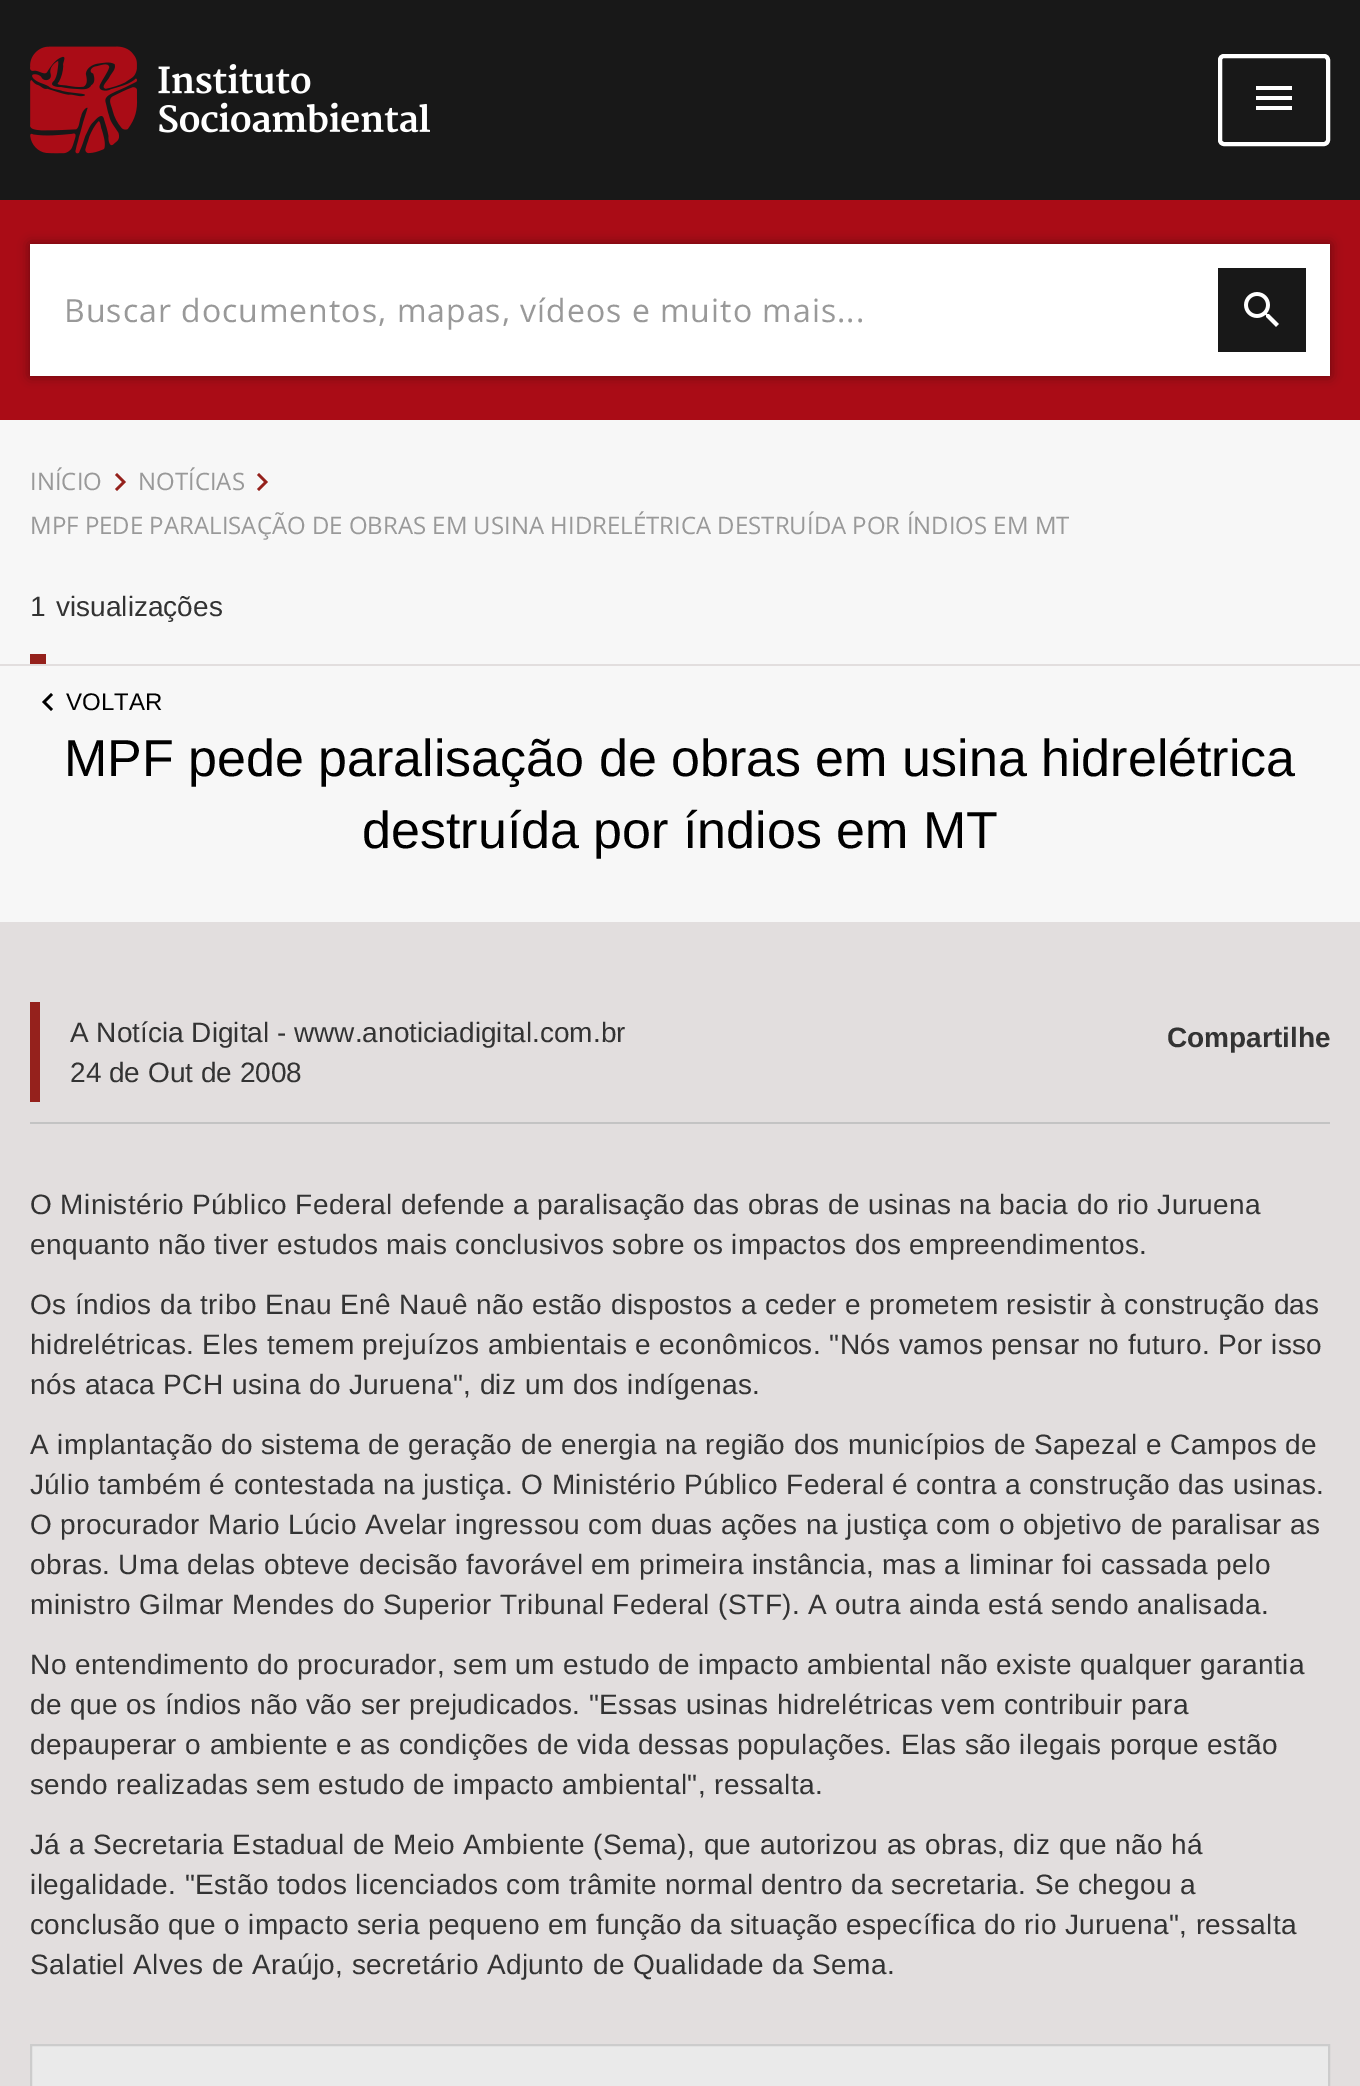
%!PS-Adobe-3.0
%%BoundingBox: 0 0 1360 2086
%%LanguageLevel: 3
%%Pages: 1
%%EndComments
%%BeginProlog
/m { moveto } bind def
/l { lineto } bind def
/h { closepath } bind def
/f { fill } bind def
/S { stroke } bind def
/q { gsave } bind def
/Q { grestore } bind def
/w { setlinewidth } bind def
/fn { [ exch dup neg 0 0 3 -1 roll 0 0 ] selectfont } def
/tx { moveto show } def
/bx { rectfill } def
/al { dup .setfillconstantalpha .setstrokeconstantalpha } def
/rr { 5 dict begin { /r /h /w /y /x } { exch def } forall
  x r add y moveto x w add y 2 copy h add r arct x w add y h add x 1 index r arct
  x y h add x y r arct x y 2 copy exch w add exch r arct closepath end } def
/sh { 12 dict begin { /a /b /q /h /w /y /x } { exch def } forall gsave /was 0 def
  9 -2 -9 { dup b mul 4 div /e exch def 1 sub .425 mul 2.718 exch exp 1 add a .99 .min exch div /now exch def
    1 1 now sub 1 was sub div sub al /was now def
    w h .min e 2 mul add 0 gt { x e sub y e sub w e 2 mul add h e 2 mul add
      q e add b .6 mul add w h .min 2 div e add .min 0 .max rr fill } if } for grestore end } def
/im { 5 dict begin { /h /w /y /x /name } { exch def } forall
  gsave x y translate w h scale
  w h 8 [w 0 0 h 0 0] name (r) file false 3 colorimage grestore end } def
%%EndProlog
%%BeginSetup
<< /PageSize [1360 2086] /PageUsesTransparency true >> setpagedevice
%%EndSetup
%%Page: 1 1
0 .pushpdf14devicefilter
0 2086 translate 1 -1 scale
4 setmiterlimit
0.094 setgray
0 0 1360 2086 bx
(image0.raw) 30 46 400 108 im
1 setgray
4 w
1220 56 108 88 4 rr S
(image1.raw) 1256 86 36 24 im
0.667 0.047 0.086 setrgbcolor
0 200 1360 220 bx
0 setgray
30 244 1300 132 0 6 0.4 sh
1 setgray
30 244 1300 132 bx
/OpenSans-Regular 32 fn
0.6 setgray
64 322 m 1 0 (Buscar documentos, mapas, vídeos e muito mais...) ashow
0.094 setgray
1218 268 88 84 bx
(image2.raw) 1244 292 35 35 im
0.969 setgray
0 420 1360 502 bx
/OpenSans-Regular 24 fn
0.6 setgray
(INÍCIO) 30 490 tx
0.584 0.129 0.11 setrgbcolor
115 489 m 122 482 l 115 475 l 117 473 l 126 482 l 117 491 l h f
0.6 setgray
(NOTÍCIAS) 138 490 tx
0.584 0.129 0.11 setrgbcolor
257 489 m 264 482 l 257 475 l 259 473 l 268 482 l 259 491 l h f
0.6 setgray
(MPF PEDE PARALISAÇÃO DE OBRAS EM USINA HIDRELÉTRICA DESTRUÍDA POR ÍNDIOS EM MT) 30 534 tx
0.584 0.129 0.11 setrgbcolor
30 654 16 10 bx
/LiberationSans-Regular 28 fn
0.2 setgray
(1) 30 616 tx
(visualizações) 56 616 tx
0.886 0.871 0.871 setrgbcolor
0 664 1360 2 bx
0 setgray
53 709 m 46 702 l 53 695 l 51 693 l 42 702 l 51 711 l h f
/LiberationSans-Regular 24 fn
(VOLTAR) 66 710 tx
/LiberationSans-Regular 52 fn
(MPF pede paralisação de obras em usina hidrelétrica) 64 776 tx
(destruída por índios em MT) 362 848 tx
0.886 0.871 0.871 setrgbcolor
0 922 1360 1164 bx
0.584 0.129 0.11 setrgbcolor
30 1002 10 100 bx
/LiberationSans-Regular 28 fn
0.2 setgray
(A Notícia Digital - www.anoticiadigital.com.br) 70 1042 tx
(24 de Out de 2008) 70 1082 tx
/LiberationSans-Bold 28 fn
(Compartilhe) 1167 1047 tx
0.765 setgray
30 1122 1300 2 bx
/LiberationSans-Regular 28 fn
0.2 setgray
30 1214 m 0.4 0 (O Ministério Público Federal defende a paralisação das obras de usinas na bacia do rio Juruena) ashow
30 1254 m 0.4 0 (enquanto não tiver estudos mais conclusivos sobre os impactos dos empreendimentos.) ashow
30 1314 m 0.4 0 (Os índios da tribo Enau Enê Nauê não estão dispostos a ceder e prometem resistir à construção das) ashow
30 1354 m 0.4 0 (hidrelétricas. Eles temem prejuízos ambientais e econômicos. "Nós vamos pensar no futuro. Por isso) ashow
30 1394 m 0.4 0 (nós ataca PCH usina do Juruena", diz um dos indígenas.) ashow
30 1454 m 0.4 0 (A implantação do sistema de geração de energia na região dos municípios de Sapezal e Campos de) ashow
30 1494 m 0.4 0 (Júlio também é contestada na justiça. O Ministério Público Federal é contra a construção das usinas.) ashow
30 1534 m 0.4 0 (O procurador Mario Lúcio Avelar ingressou com duas ações na justiça com o objetivo de paralisar as) ashow
30 1574 m 0.4 0 (obras. Uma delas obteve decisão favorável em primeira instância, mas a liminar foi cassada pelo) ashow
30 1614 m 0.4 0 (ministro Gilmar Mendes do Superior Tribunal Federal \(STF\). A outra ainda está sendo analisada.) ashow
30 1674 m 0.4 0 (No entendimento do procurador, sem um estudo de impacto ambiental não existe qualquer garantia) ashow
30 1714 m 0.4 0 (de que os índios não vão ser prejudicados. "Essas usinas hidrelétricas vem contribuir para) ashow
30 1754 m 0.4 0 (depauperar o ambiente e as condições de vida dessas populações. Elas são ilegais porque estão) ashow
30 1794 m 0.4 0 (sendo realizadas sem estudo de impacto ambiental", ressalta.) ashow
30 1854 m 0.4 0 (Já a Secretaria Estadual de Meio Ambiente \(Sema\), que autorizou as obras, diz que não há) ashow
30 1894 m 0.4 0 (ilegalidade. "Estão todos licenciados com trâmite normal dentro da secretaria. Se chegou a) ashow
30 1934 m 0.4 0 (conclusão que o impacto seria pequeno em função da situação específica do rio Juruena", ressalta) ashow
30 1974 m 0.4 0 (Salatiel Alves de Araújo, secretário Adjunto de Qualidade da Sema.) ashow
0.918 setgray
31 2045 m 1329 2045 l 1329 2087 l 31 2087 l h q f Q
0.8 setgray
2 w
S
.poppdf14devicefilter showpage
%%EOF
